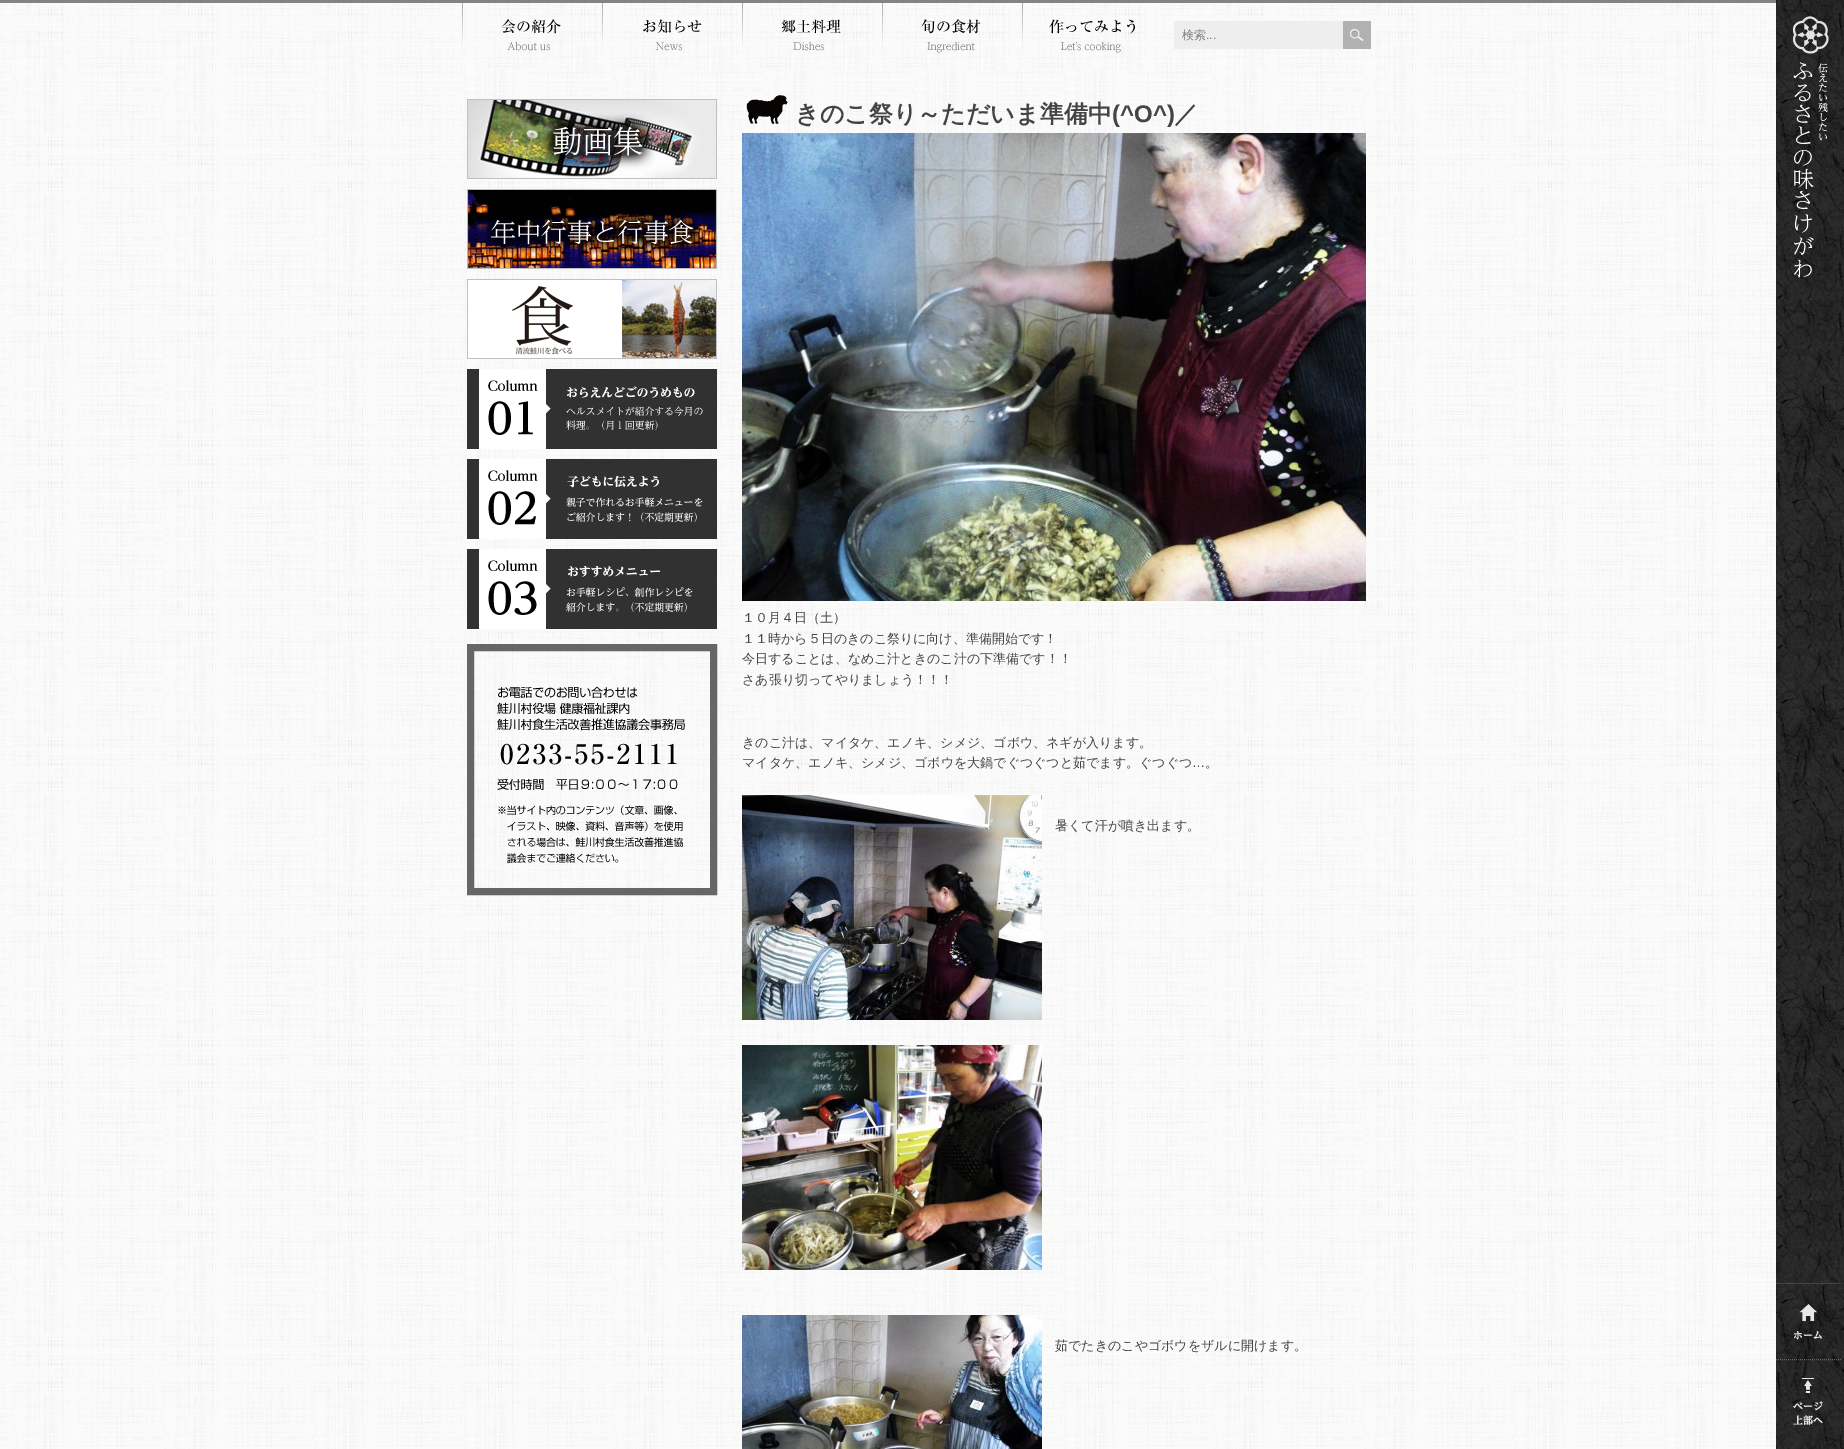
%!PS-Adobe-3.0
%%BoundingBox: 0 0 1844 1449
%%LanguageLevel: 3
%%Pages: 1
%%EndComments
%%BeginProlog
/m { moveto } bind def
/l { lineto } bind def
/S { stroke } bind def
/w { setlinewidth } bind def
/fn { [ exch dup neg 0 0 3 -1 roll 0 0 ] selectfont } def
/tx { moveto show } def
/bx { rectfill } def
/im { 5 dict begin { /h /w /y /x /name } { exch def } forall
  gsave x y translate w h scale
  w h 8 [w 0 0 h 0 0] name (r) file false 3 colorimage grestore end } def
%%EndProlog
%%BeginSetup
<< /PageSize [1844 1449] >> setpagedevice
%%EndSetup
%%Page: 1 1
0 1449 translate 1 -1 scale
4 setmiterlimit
1 setgray
0 0 1844 1449 bx
(image0.raw) 0 3 1776 1446 im
0.514 setgray
0 0 1776 3 bx
(image1.raw) 462 3 140 67 im
(image2.raw) 602 3 139 67 im
(image3.raw) 742 3 140 67 im
(image4.raw) 882 3 140 67 im
(image5.raw) 1022 3 140 67 im
0.933 setgray
1174 21 169 28 bx
/WenQuanYiZenHei-Medium 12 fn
0.482 setgray
(検索) 1182 39 tx
/LiberationSans-Regular 12 fn
(...) 1206 39 tx
(image6.raw) 1343 21 28 28 im
(image7.raw) 1776 0 68 1449 im
(image8.raw) 1793 16 36 262 im
(image9.raw) 1794 1304 28 36 im
0.267 setgray
1776 1283 65 1 bx
0.4 setgray
[1 1] 0 setdash
1776 1359.5 m 1841 1359.5 l S
(image10.raw) 1793 1378 30 47 im
(image11.raw) 467 99 250 80 im
(image12.raw) 467 189 250 80 im
(image13.raw) 467 279 250 80 im
(image14.raw) 467 369 250 80 im
(image15.raw) 467 459 250 80 im
(image16.raw) 467 549 250 80 im
(image17.raw) 497 686 188 178 im
7 w
[] 0 setdash
470.5 647.5 243 244 rectstroke
(image18.raw) 746 95 42 29 im
/WenQuanYiZenHei-Bold 24 fn
0.267 setgray
(きのこ祭り～ただいま準備中) 795 122 tx
/LiberationSans-Bold 24 fn
(\(^O^\)) 1112 122 tx
/WenQuanYiZenHei-Bold 24 fn
(／) 1174 122 tx
(image19.raw) 742 133 624 468 im
/WenQuanYiZenHei-Medium 13 fn
(１０月４日（土）) 742 622 tx
(１１時から５日のきのこ祭りに向け、準備開始です！) 742 643 tx
(今日することは、なめこ汁ときのこ汁の下準備です！！) 742 663 tx
(さあ張り切ってやりましょう！！！) 742 684 tx
(きのこ汁は、マイタケ、エノキ、シメジ、ゴボウ、ネギが入ります。) 742 747 tx
(マイタケ、エノキ、シメジ、ゴボウを大鍋でぐつぐつと茹でます。ぐつぐつ) 742 767 tx
/LiberationSans-Regular 13 fn
(…) 1192 767 tx
/WenQuanYiZenHei-Medium 13 fn
(。) 1205 767 tx
(image20.raw) 742 795 300 225 im
(暑くて汗が噴き出ます。) 1055 830 tx
(image21.raw) 742 1045 300 225 im
(image22.raw) 742 1315 300 134 im
(茹でたきのこやゴボウをザルに開けます。) 1055 1350 tx
showpage
%%EOF
